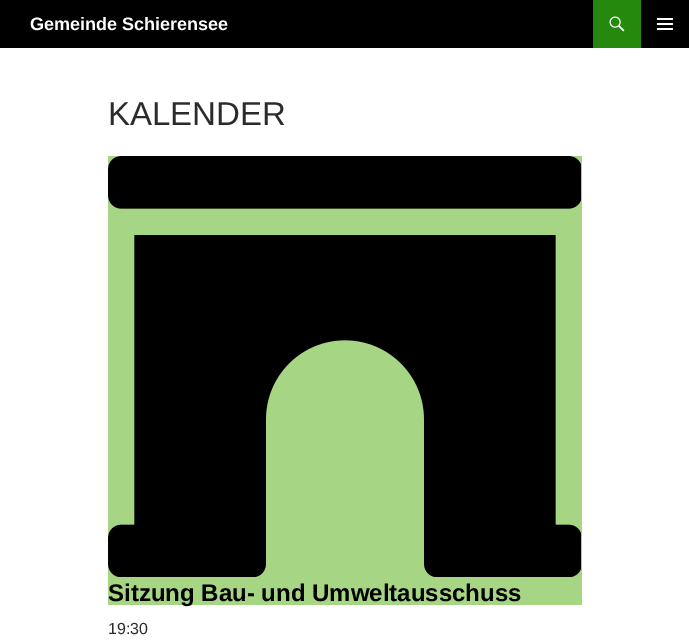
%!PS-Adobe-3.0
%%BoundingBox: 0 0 689 644
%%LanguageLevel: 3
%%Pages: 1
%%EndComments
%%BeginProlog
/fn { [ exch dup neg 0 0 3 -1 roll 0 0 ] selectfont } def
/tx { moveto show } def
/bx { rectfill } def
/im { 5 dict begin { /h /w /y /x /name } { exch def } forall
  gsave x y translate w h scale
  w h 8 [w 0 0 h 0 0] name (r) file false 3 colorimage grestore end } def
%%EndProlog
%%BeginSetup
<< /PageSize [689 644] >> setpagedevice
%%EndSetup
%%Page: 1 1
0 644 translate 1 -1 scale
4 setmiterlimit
1 setgray
0 0 689 644 bx
0 setgray
0 0 689 48 bx
/LiberationSans-Bold 18 fn
1 setgray
(Gemeinde Schierensee) 30 30 tx
0.141 0.537 0.051 setrgbcolor
593 0 48 48 bx
(image0.raw) 609 16 16 16 im
(image1.raw) 657 18 16 12 im
/LiberationSans-Regular 33 fn
0.169 setgray
(KALENDER) 108 125 tx
0.651 0.839 0.518 setrgbcolor
108 156 474 449 bx
(image2.raw) 108 156 473 421 im
/LiberationSans-Bold 24 fn
0 setgray
(Sitzung Bau- und Umweltausschuss) 108 601 tx
/LiberationSans-Regular 16 fn
0.169 setgray
(19:30) 108 634 tx
showpage
%%EOF
